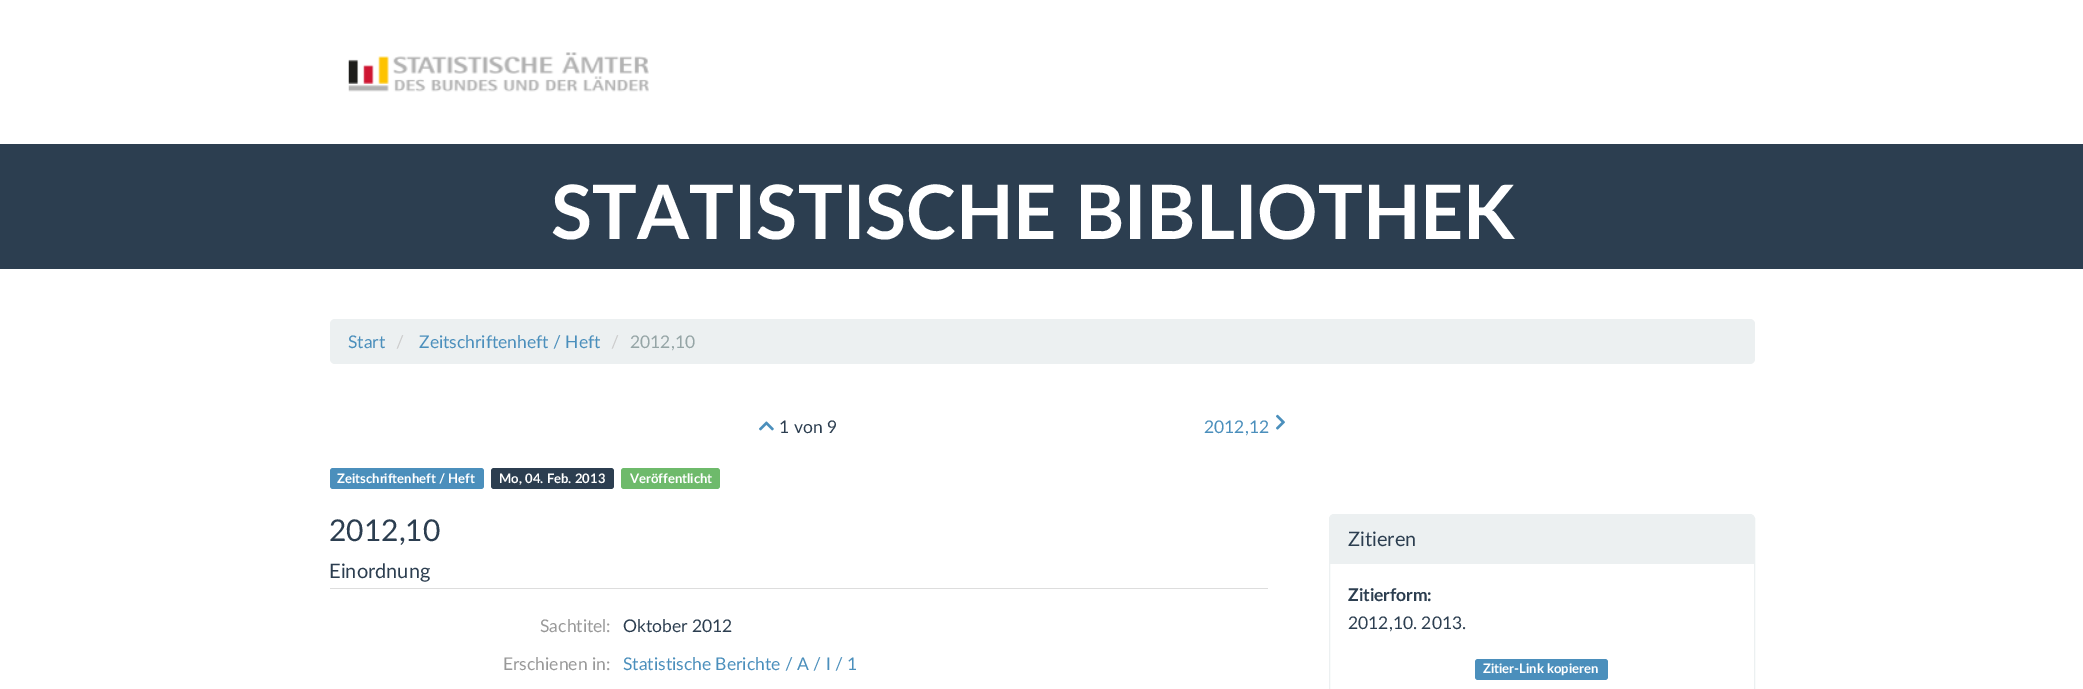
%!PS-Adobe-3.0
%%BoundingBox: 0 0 2083 689
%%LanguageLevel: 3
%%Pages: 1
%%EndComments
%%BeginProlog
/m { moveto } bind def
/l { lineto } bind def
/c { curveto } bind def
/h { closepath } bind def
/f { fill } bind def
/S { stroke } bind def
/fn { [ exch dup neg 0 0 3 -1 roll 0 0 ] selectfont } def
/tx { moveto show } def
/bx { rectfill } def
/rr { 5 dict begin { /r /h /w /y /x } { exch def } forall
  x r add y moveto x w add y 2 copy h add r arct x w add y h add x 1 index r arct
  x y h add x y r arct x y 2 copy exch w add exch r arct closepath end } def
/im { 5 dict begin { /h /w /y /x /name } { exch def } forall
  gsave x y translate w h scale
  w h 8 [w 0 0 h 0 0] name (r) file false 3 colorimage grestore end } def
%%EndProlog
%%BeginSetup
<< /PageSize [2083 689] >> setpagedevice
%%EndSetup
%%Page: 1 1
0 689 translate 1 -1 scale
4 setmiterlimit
1 setgray
0 0 2083 689 bx
(image0.raw) 348 52 301 40 im
0.173 0.243 0.314 setrgbcolor
0 144 2083 125 bx
/Lato-Bold 75 fn
1 setgray
(STATISTISCHE BIBLIOTHEK) 551 239 tx
0.925 0.941 0.945 setrgbcolor
330 319 1425 45 5 rr f
/Lato-Regular 17.5 fn
0.294 0.561 0.737 setrgbcolor
(Start) 348 348 tx
0.8 setgray
(/) 396 348 tx
0.294 0.561 0.737 setrgbcolor
(Zeitschriftenheft / Heft) 419 348 tx
0.8 setgray
(/) 611 348 tx
0.584 0.647 0.651 setrgbcolor
(2012,10) 630 348 tx
(image1.raw) 759 421 15 10 im
0.173 0.243 0.314 setrgbcolor
(1 von 9) 779 433 tx
0.294 0.561 0.737 setrgbcolor
(2012,12) 1204 433 tx
(image2.raw) 1276 414 9 16 im
330 468 154 21 3 rr f
/Lato-Bold 13.1 fn
1 setgray
(Zeitschriftenheft / Heft) 337 483 tx
0.173 0.243 0.314 setrgbcolor
491 468 123 21 3 rr f
1 setgray
(Mo, 04. Feb. 2013) 499 483 tx
0.431 0.729 0.42 setrgbcolor
621 468 99 21 3 rr f
1 setgray
(Veröffentlicht) 630 483 tx
/Lato-Regular 30 fn
0.173 0.243 0.314 setrgbcolor
(2012,10) 329 541 tx
0.867 setgray
330 588 938 1 bx
/Lato-Regular 20 fn
0.173 0.243 0.314 setrgbcolor
(Einordnung) 329 578 tx
/Lato-Regular 17.5 fn
0.6 setgray
(Sachtitel:) 540 632 tx
0.173 0.243 0.314 setrgbcolor
(Oktober 2012) 623 632 tx
0.6 setgray
(Erschienen in:) 503 670 tx
0.294 0.561 0.737 setrgbcolor
(Statistische Berichte / A / I / 1) 623 670 tx
0.925 0.941 0.945 setrgbcolor
1329.5 514.5 425 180 4.5 rr S
1334 515 m 1750 515 l 1752 515 1754 517 1754 519 c 1754 564 l 1330 564 l 1330 519 l 1330 517 1332 515 1334 515 c h f
/Lato-Regular 20 fn
0.173 0.243 0.314 setrgbcolor
(Zitieren) 1348 546 tx
/Lato-Bold 17.5 fn
(Zitierform:) 1348 601 tx
/Lato-Regular 17.5 fn
(2012,10. 2013.) 1348 629 tx
0.294 0.561 0.737 setrgbcolor
1475 659 133 21 3 rr f
/Lato-Bold 13.1 fn
1 setgray
(Zitier-Link kopieren) 1483 673 tx
showpage
%%EOF
